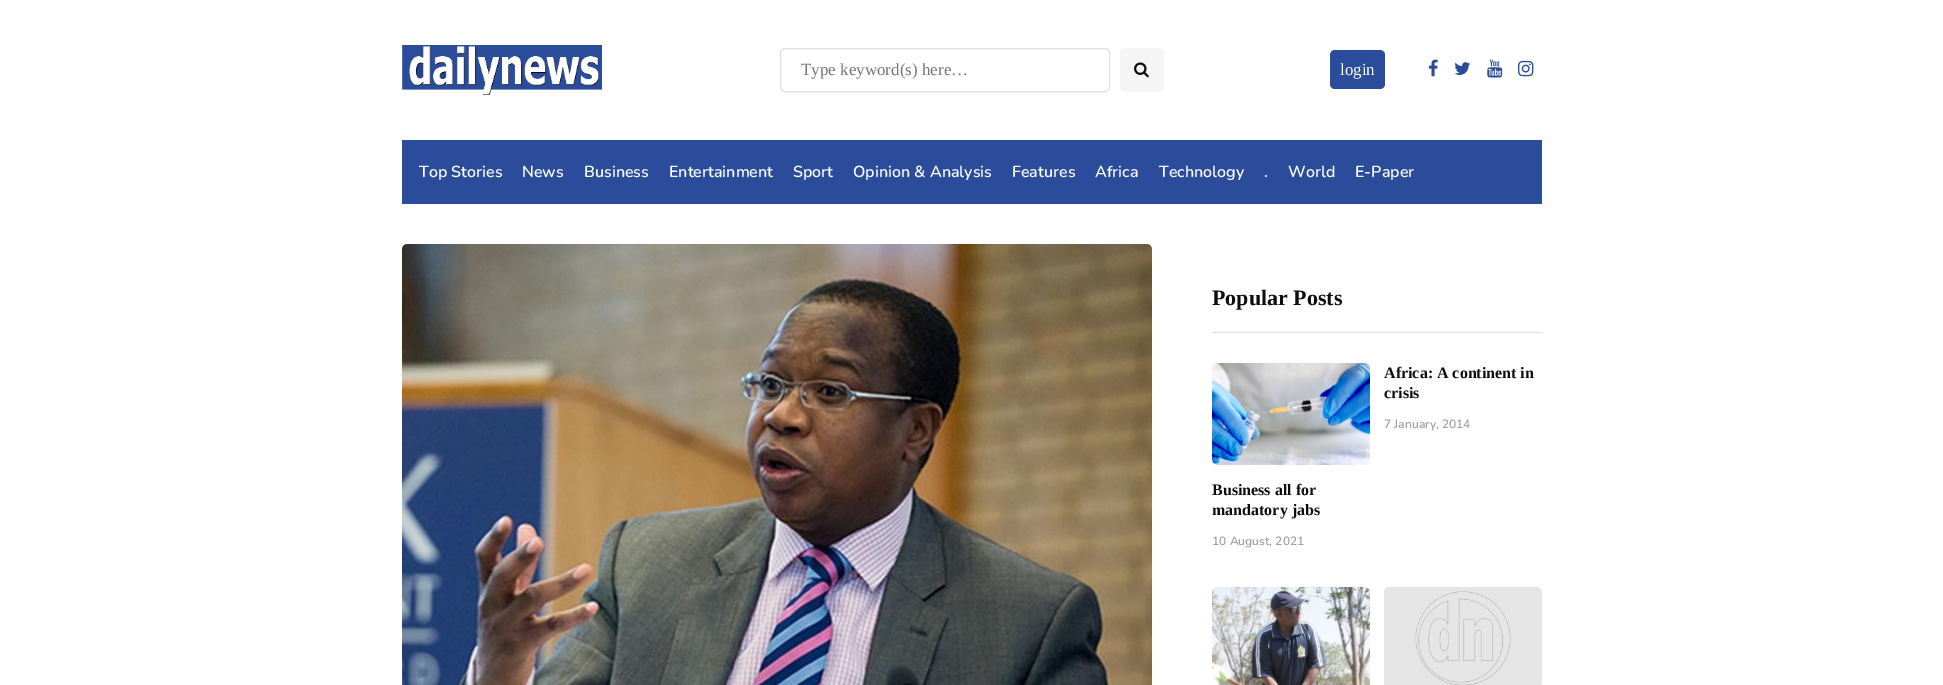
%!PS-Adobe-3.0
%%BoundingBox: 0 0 1943 685
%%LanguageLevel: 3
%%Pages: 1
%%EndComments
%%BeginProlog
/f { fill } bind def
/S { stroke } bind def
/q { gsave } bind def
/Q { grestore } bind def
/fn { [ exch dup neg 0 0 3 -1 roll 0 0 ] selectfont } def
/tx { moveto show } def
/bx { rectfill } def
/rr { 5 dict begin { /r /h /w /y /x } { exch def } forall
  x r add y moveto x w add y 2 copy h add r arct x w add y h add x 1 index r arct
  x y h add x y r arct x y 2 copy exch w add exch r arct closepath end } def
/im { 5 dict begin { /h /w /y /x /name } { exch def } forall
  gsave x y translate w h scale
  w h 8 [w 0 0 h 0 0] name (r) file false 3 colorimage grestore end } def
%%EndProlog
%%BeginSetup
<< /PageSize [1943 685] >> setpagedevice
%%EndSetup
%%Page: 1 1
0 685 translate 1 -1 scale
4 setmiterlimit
1 setgray
0 0 1943 685 bx
(image0.raw) 402 45 200 50 im
0.878 0.871 0.871 setrgbcolor
780.5 48.5 329 43 4.5 rr S
q
801 60 284 20 rectclip
/LiberationSerif-Regular 17 fn
0.459 setgray
(Type keyword\(s\) here…) 801 75 tx
Q
0.961 setgray
1120 48 44 44 5 rr f
(image1.raw) 1134 62 15 16 im
0.165 0.298 0.608 setrgbcolor
1330 50 55 39 5 rr f
/LiberationSerif-Regular 17 fn
1 setgray
(login) 1340 75 tx
(image2.raw) 1428 59 10 18 im
(image3.raw) 1454 62 17 13 im
(image4.raw) 1487 59 16 19 im
(image5.raw) 1518 60 16 17 im
0.165 0.298 0.608 setrgbcolor
402 140 1140 64 bx
/Nunito-ExtraLight 16 fn
1 setgray
(Top Stories) 419 177 tx
(News) 522 177 tx
(Business) 584 177 tx
(Entertainment) 669 177 tx
(Sport) 793 177 tx
(Opinion & Analysis) 853 177 tx
(Features) 1012 177 tx
(Africa) 1095 177 tx
(Technology) 1159 177 tx
(.) 1264 177 tx
(World) 1288 177 tx
(E-Paper) 1355 177 tx
(image6.raw) 402 244 750 441 im
0.878 0.871 0.871 setrgbcolor
1212 332 330 1 bx
/LiberationSerif-Bold 22 fn
0.059 0.055 0.055 setrgbcolor
(Popular Posts) 1212 305 tx
/LiberationSerif-Bold 16 fn
(Africa: A continent in) 1384 378 tx
(crisis) 1384 398 tx
/Nunito-ExtraLight 12 fn
0.624 setgray
(7 January, 2014) 1384 428 tx
0.961 setgray
1212 363 158 102 5 rr f
(image7.raw) 1212 363 158 102 im
/LiberationSerif-Bold 16 fn
0.059 0.055 0.055 setrgbcolor
(Business all for) 1212 495 tx
(mandatory jabs) 1212 515 tx
/Nunito-ExtraLight 12 fn
0.624 setgray
(10 August, 2021) 1212 545 tx
0.961 setgray
1212 587 158 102 5 rr f
(image8.raw) 1212 587 158 98 im
1384 587 158 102 5 rr f
(image9.raw) 1384 587 158 98 im
showpage
%%EOF
